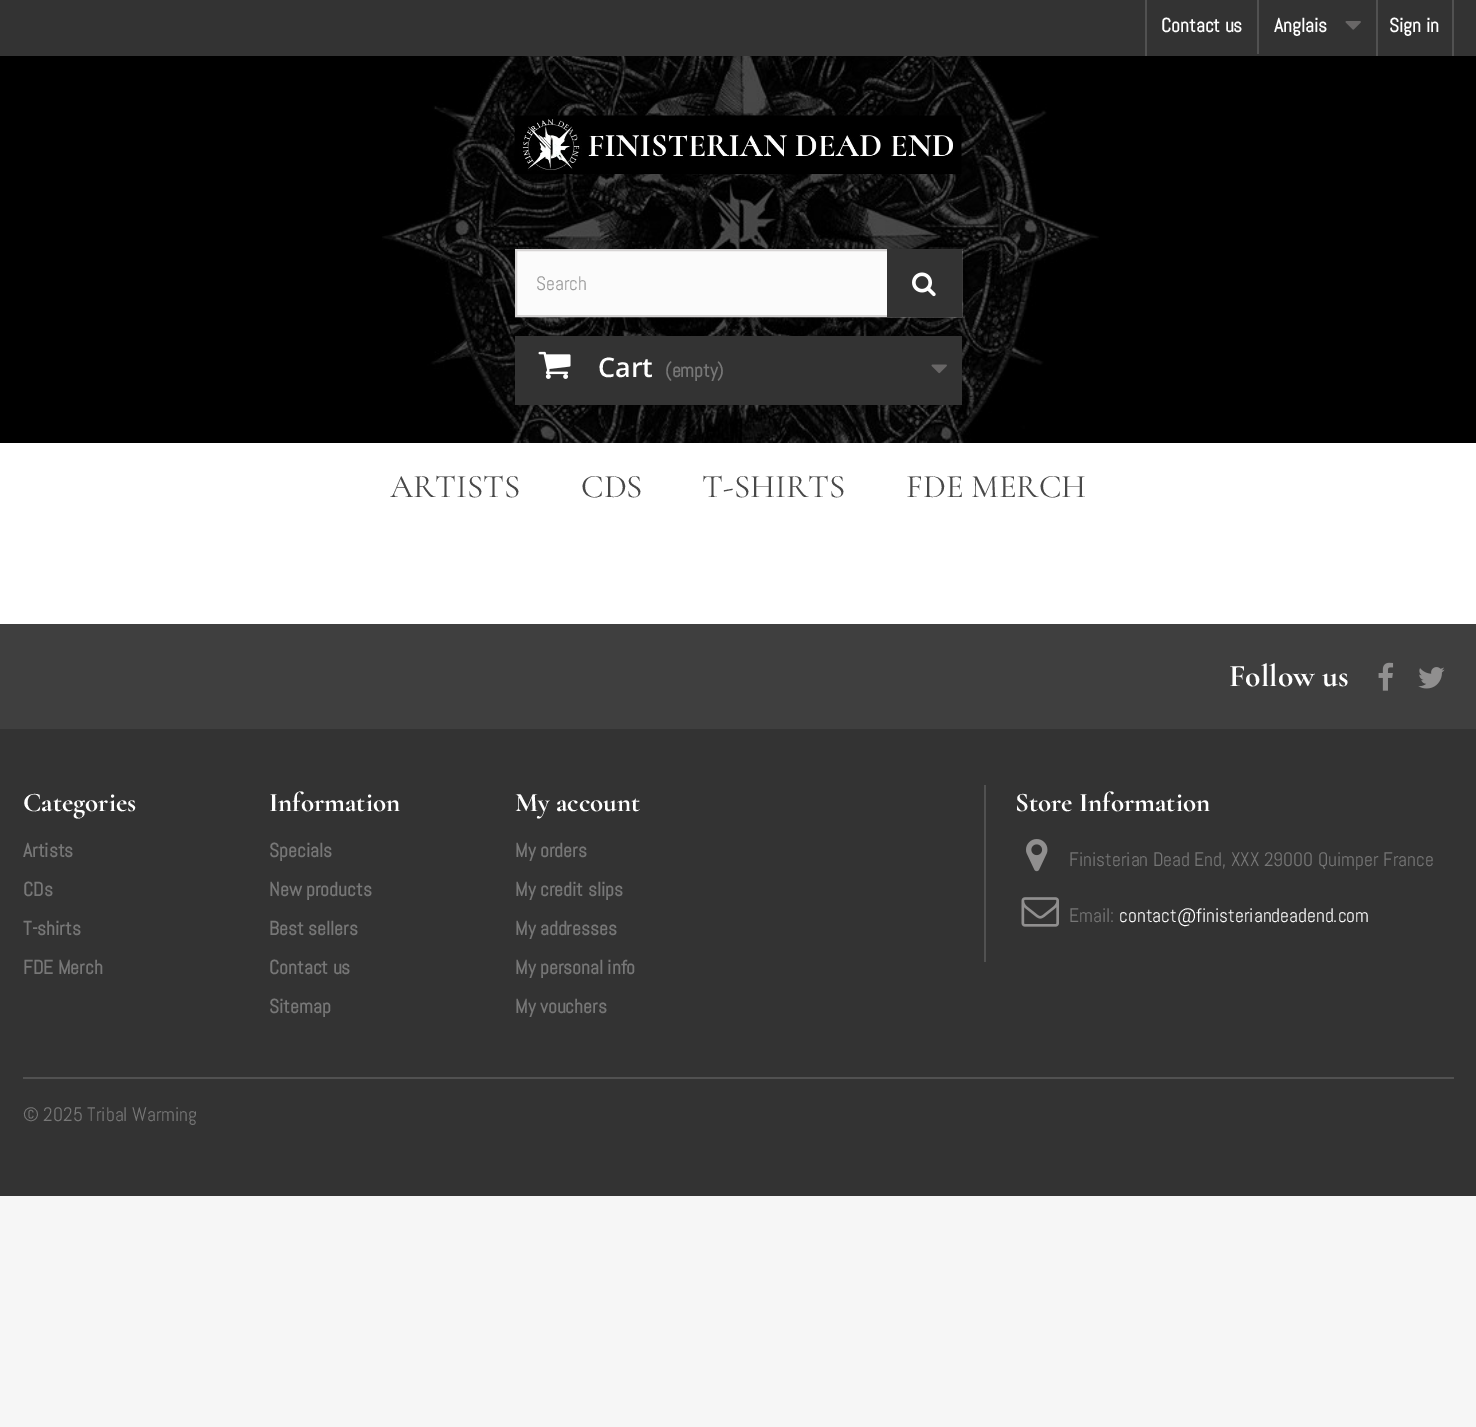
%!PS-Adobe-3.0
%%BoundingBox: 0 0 1476 1427
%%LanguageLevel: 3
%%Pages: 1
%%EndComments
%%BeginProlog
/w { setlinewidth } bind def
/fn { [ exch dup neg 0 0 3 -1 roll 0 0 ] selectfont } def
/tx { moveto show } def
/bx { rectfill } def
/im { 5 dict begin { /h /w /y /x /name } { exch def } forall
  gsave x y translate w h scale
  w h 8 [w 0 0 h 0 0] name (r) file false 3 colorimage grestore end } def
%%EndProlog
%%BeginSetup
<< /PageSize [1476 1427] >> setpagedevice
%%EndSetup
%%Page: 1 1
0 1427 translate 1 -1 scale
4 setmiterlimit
0.965 setgray
0 0 1476 1427 bx
0 setgray
0 56 1476 387 bx
(image0.raw) 382 56 717 387 im
0.2 setgray
0 0 1476 56 bx
0.318 setgray
1145 0 2 56 bx
/Abel-Bold 19.5 fn
1 setgray
(Contact us) 1161 32 tx
0.318 setgray
1257 0 2 54 bx
1 setgray
(Anglais) 1274 32 tx
(image1.raw) 1345 21 16 9 im
0.318 setgray
1452 0 2 56 bx
1376 0 2 56 bx
1 setgray
(Sign in) 1389 32 tx
(image2.raw) 514 115 448 59 im
0.984 setgray
517 251 370 64 bx
0.839 0.831 0.831 setrgbcolor
2 w
516 250 445 66 rectstroke
/Abel-Regular 19.5 fn
0.6 setgray
(Search) 536 290 tx
0.2 setgray
887 249 75 68 bx
(image3.raw) 912 272 24 25 im
515 336 447 69 bx
(image4.raw) 538 351 33 28 im
/OpenSans-SemiBold 27 fn
1 setgray
(Cart) 598 377 tx
/Abel-Bold 19.5 fn
0.467 setgray
(\(empty\)) 665 377 tx
(image5.raw) 931 364 16 10 im
1 setgray
0 443 1476 181 bx
/CormorantGaramond-Regular 33 fn
0.282 setgray
(ARTISTS) 390 497 tx
(CDS) 581 497 tx
(T-SHIRTS) 702 497 tx
(FDE MERCH) 906 497 tx
0.2 setgray
0 729 1476 467 bx
0.247 setgray
0 624 1476 105 bx
/CormorantGaramond-Bold 31.5 fn
1 setgray
(Follow us) 1229 686 tx
(image6.raw) 1378 662 16 29 im
(image7.raw) 1418 667 27 22 im
/CormorantGaramond-Bold 27 fn
(Categories) 23 811 tx
/Abel-Bold 19.5 fn
0.467 setgray
(Artists) 23 857 tx
(CDs) 23 896 tx
(T-shirts) 23 935 tx
(FDE Merch) 23 974 tx
/CormorantGaramond-Bold 27 fn
1 setgray
(Information) 269 811 tx
/Abel-Bold 19.5 fn
0.467 setgray
(Specials) 269 857 tx
(New products) 269 896 tx
(Best sellers) 269 935 tx
(Contact us) 269 974 tx
(Sitemap) 269 1013 tx
/CormorantGaramond-Bold 27 fn
1 setgray
(My account) 515 811 tx
/Abel-Bold 19.5 fn
0.467 setgray
(My orders) 515 857 tx
(My credit slips) 515 896 tx
(My addresses) 515 935 tx
(My personal info) 515 974 tx
(My vouchers) 515 1013 tx
0.318 setgray
984 785 2 177 bx
/CormorantGaramond-Bold 27 fn
1 setgray
(Store Information) 1015 811 tx
(image8.raw) 1026 839 22 33 im
/Abel-Regular 19.5 fn
0.467 setgray
(Finisterian Dead End, XXX 29000 Quimper France) 1069 866 tx
(image9.raw) 1021 897 38 30 im
(Email:) 1069 922 tx
1 setgray
(contact@finisteriandeadend.com) 1119 922 tx
0.318 setgray
23 1077 1431 2 bx
0.467 setgray
(© 2025 Tribal Warming) 23 1121 tx
showpage
%%EOF
